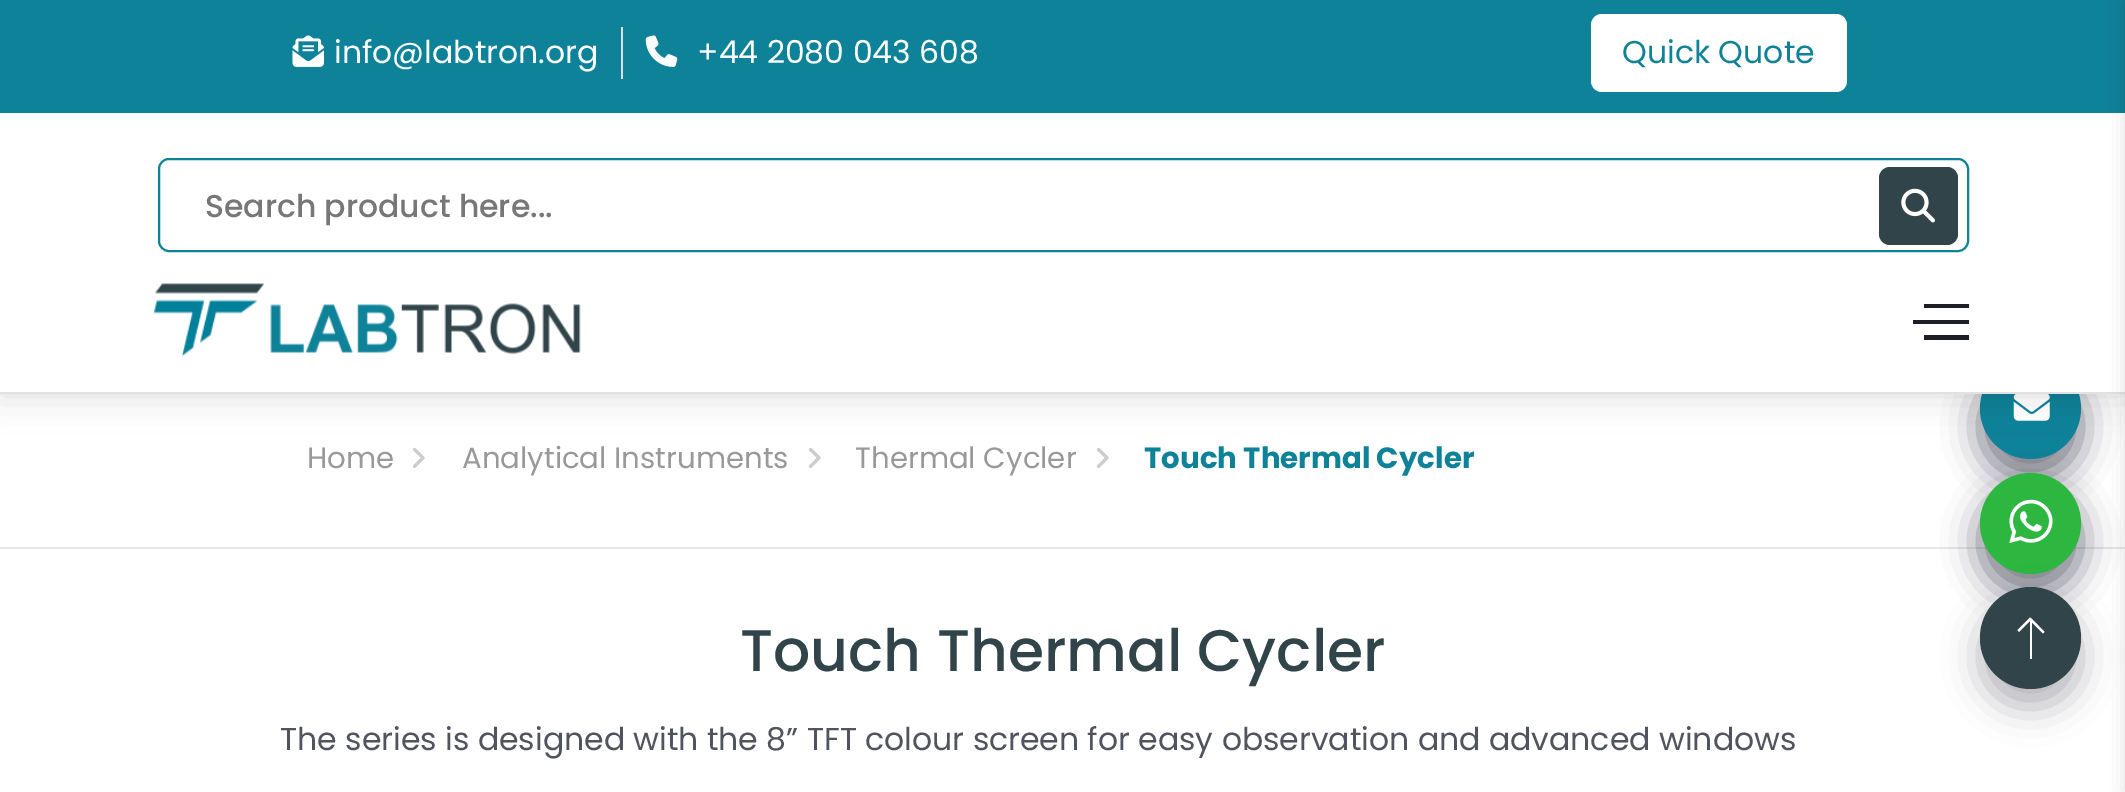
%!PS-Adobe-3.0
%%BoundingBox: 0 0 2125 792
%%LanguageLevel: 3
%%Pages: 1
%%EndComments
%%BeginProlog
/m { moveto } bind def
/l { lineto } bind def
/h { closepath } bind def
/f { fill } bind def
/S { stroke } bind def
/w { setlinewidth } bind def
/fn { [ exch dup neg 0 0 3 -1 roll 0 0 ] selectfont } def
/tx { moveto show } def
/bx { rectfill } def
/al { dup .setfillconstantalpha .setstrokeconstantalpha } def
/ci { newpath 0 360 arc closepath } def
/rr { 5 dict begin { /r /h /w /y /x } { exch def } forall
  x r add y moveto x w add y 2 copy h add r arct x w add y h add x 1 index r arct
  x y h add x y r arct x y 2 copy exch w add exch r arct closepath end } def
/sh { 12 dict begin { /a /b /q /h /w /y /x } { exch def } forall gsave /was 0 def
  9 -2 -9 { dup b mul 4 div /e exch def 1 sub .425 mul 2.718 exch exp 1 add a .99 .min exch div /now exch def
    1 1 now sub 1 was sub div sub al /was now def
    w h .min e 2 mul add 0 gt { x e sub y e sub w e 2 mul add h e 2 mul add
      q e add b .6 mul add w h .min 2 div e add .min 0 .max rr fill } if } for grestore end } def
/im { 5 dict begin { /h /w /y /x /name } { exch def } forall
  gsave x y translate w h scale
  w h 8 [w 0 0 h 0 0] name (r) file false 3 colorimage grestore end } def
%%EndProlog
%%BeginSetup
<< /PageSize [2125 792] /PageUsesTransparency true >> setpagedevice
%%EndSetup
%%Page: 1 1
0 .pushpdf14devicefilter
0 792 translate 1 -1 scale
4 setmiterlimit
1 setgray
0 0 2125 792 bx
(image4.raw) 413 447 12 21 im
(image4.raw) 809 447 12 21 im
(image4.raw) 1097 447 12 21 im
0.012 0.016 0.11 setrgbcolor
1980 376 101 101 50.5 18 0.3 sh
1980 376 101 101 50.5 18 0.3 sh
0.055 0.51 0.6 setrgbcolor
2030.5 408.5 50.5 ci f
(image5.raw) 2013 394 37 27 im
0 setgray
0 0 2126 394 0 18 0.15 sh
1 setgray
0 113 2125 279 bx
0.882 setgray
0 392 2125 2 bx
0.055 0.51 0.6 setrgbcolor
0 0 2125 113 bx
(image0.raw) 292 35 32 32 im
/Poppins-Regular 31.5 fn
1 setgray
(info@labtron.org) 334 63 tx
0.867 setgray
621 27 2 52 bx
(image1.raw) 645 35 33 32 im
1 setgray
(+44 2080 043 608) 697 63 tx
1591 14 256 78 11 rr f
0.055 0.51 0.6 setrgbcolor
(Quick Quote) 1622 63 tx
2 w
159 159 1809 92 10 rr S
/Poppins-Medium 31.5 fn
0.467 setgray
(Search product here...) 205 217 tx
0.192 0.267 0.29 setrgbcolor
1879 167 79 78 11 rr f
(image2.raw) 1901 188 34 35 im
(image3.raw) 154 283 427 74 im
0.118 0.118 0.153 setrgbcolor
1924 304 45 4 bx
1913 320 56 4 bx
1924 335 45 5 bx
0.914 setgray
0 547 2125 2 bx
0 setgray
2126 0 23 792 0 8 0.15 sh
/Poppins-Regular 29.25 fn
0.6 setgray
(Home) 307 468 tx
(Analytical Instruments) 462 468 tx
(Thermal Cycler) 855 468 tx
/Poppins-Bold 29.25 fn
0.055 0.51 0.6 setrgbcolor
(Touch Thermal Cycler) 1144 468 tx
/Poppins-Medium 58.5 fn
0.192 0.267 0.29 setrgbcolor
(Touch Thermal Cycler) 740 671 tx
/Poppins-Regular 31.5 fn
0.318 0.329 0.373 setrgbcolor
(The series is designed with the 8” TFT colour screen for easy observation and advanced windows) 280 750 tx
0.012 0.016 0.11 setrgbcolor
1980 491 101 101 50.5 18 0.3 sh
1980 491 101 101 50.5 18 0.3 sh
0.176 0.714 0.251 setrgbcolor
2030.5 523.5 50.5 ci f
(image6.raw) 2009 499 44 44 im
0.012 0.016 0.11 setrgbcolor
1980 605 101 102 50.5 18 0.3 sh
0.192 0.267 0.29 setrgbcolor
1980 587 101 102 50.5 rr f
1 setgray
2030 619 2 40 bx
2030 620.5 m 2032 619 l 2044.5 632 l 2043 633.5 l h f
2030 617.5 m 2032 619 l 2019 632 l 2017.5 630 l h f
.poppdf14devicefilter showpage
%%EOF
